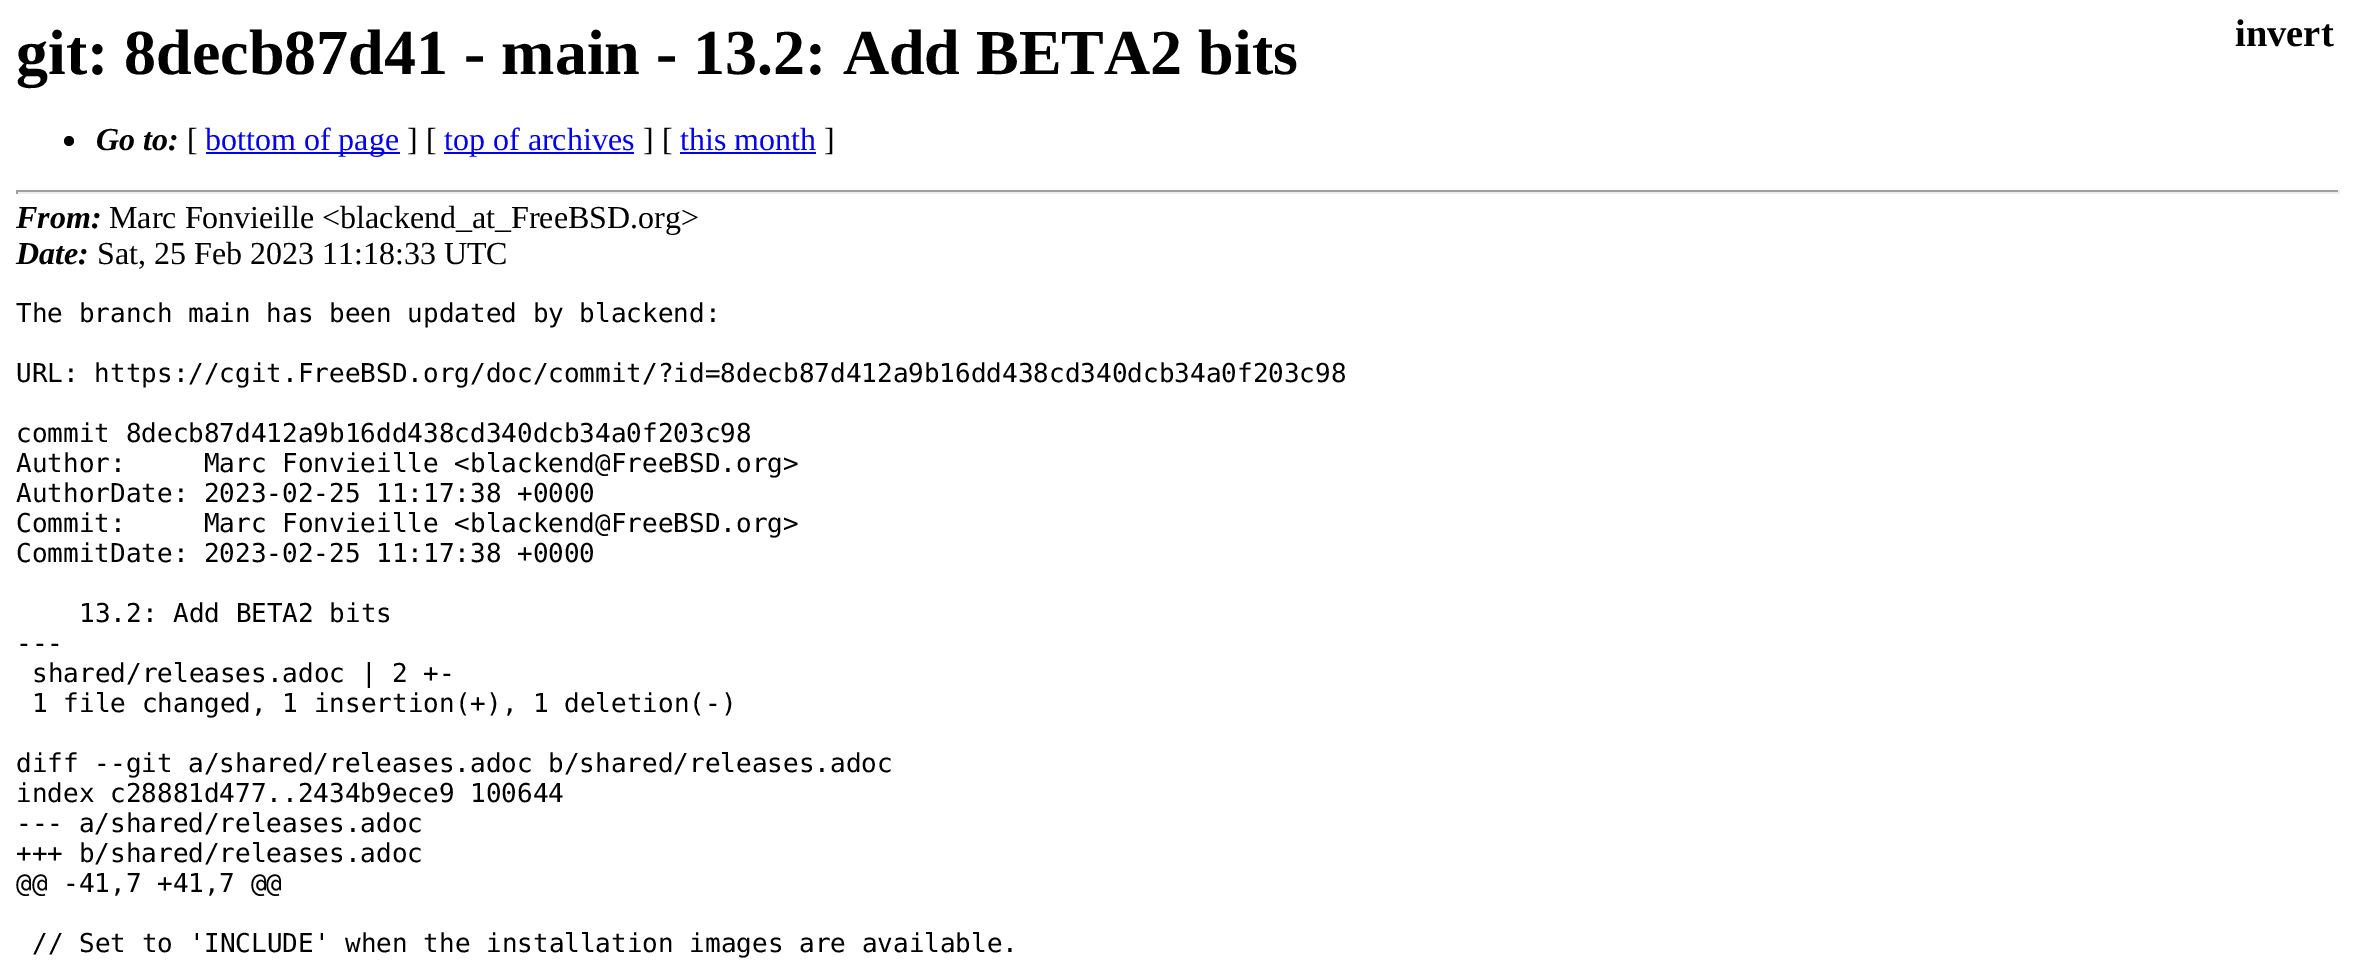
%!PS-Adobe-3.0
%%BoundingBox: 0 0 2356 961
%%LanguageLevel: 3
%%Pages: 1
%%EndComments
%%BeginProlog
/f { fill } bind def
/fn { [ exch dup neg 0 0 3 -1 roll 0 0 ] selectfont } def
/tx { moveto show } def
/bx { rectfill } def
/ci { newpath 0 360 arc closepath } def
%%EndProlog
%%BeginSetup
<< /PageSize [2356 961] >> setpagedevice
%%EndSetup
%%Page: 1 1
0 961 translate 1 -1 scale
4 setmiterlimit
1 setgray
0 0 2356 961 bx
/LiberationSerif-Bold 64 fn
0 setgray
(git: 8decb87d41 - main - 13.2: Add BETA2 bits) 16 74 tx
69 141 5 ci f
/LiberationSerif-BoldItalic 32 fn
(Go to:) 96 150 tx
/LiberationSerif-Regular 32 fn
([) 187 150 tx
0 0 0.933 setrgbcolor
206 152 194 2 bx
(bottom of page) 205 150 tx
0 setgray
(] [) 407 150 tx
0 0 0.933 setrgbcolor
444 152 190 2 bx
(top of archives) 444 150 tx
0 setgray
(] [) 643 150 tx
0 0 0.933 setrgbcolor
(this month) 680 150 tx
680 152 136 2 bx
0 setgray
(]) 824 150 tx
0.624 setgray
16 190 2324 2 bx
0.933 setgray
2338 190 2 4 bx
16 192 2324 2 bx
0.624 setgray
16 190 2 4 bx
/LiberationSerif-Bold 38.5 fn
0 setgray
(invert) 2235 46 tx
/LiberationSerif-BoldItalic 32 fn
(From:) 16 228 tx
/LiberationSerif-Regular 32 fn
(Marc Fonvieille <blackend_at_FreeBSD.org>) 109 228 tx
/LiberationSerif-BoldItalic 32 fn
(Date:) 16 264 tx
/LiberationSerif-Regular 32 fn
(Sat, 25 Feb 2023 11:18:33 UTC) 97 264 tx
/DejaVuSansMono-Regular 26 fn
(The branch main has been updated by blackend:) 16 322 tx
(URL: https://cgit.FreeBSD.org/doc/commit/?id=8decb87d412a9b16dd438cd340dcb34a0f203c98) 16 382 tx
(commit 8decb87d412a9b16dd438cd340dcb34a0f203c98) 16 442 tx
(Author:     Marc Fonvieille <blackend@FreeBSD.org>) 16 472 tx
(AuthorDate: 2023-02-25 11:17:38 +0000) 16 502 tx
(Commit:     Marc Fonvieille <blackend@FreeBSD.org>) 16 532 tx
(CommitDate: 2023-02-25 11:17:38 +0000) 16 562 tx
(13.2: Add BETA2 bits) 79 622 tx
(---) 16 652 tx
(shared/releases.adoc | 2 +-) 32 682 tx
(1 file changed, 1 insertion\(+\), 1 deletion\(-\)) 32 712 tx
(diff --git a/shared/releases.adoc b/shared/releases.adoc) 16 772 tx
(index c28881d477..2434b9ece9 100644) 16 802 tx
(--- a/shared/releases.adoc) 16 832 tx
(+++ b/shared/releases.adoc) 16 862 tx
(@@ -41,7 +41,7 @@) 16 892 tx
(// Set to 'INCLUDE' when the installation images are available.) 32 952 tx
showpage
%%EOF
